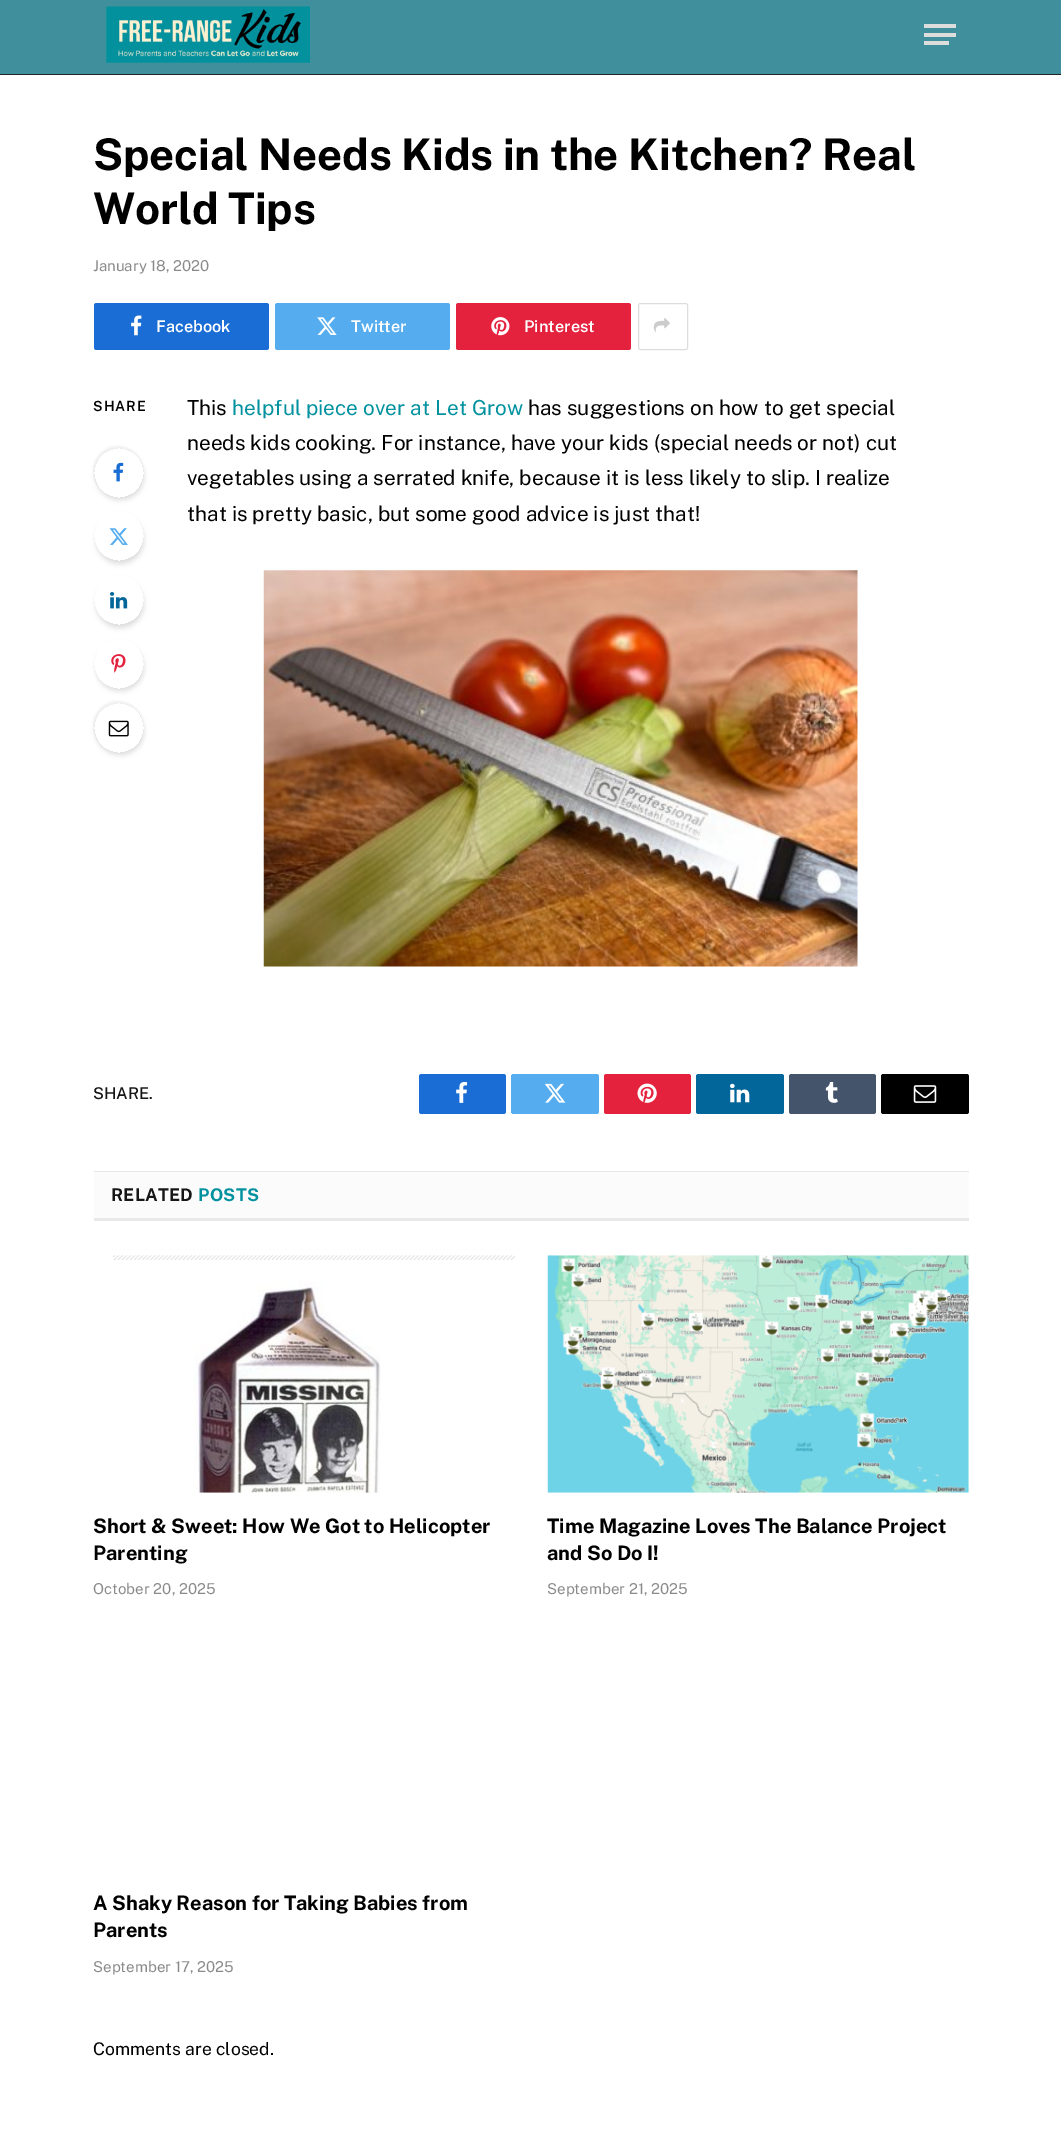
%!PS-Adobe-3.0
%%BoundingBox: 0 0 1061 2141
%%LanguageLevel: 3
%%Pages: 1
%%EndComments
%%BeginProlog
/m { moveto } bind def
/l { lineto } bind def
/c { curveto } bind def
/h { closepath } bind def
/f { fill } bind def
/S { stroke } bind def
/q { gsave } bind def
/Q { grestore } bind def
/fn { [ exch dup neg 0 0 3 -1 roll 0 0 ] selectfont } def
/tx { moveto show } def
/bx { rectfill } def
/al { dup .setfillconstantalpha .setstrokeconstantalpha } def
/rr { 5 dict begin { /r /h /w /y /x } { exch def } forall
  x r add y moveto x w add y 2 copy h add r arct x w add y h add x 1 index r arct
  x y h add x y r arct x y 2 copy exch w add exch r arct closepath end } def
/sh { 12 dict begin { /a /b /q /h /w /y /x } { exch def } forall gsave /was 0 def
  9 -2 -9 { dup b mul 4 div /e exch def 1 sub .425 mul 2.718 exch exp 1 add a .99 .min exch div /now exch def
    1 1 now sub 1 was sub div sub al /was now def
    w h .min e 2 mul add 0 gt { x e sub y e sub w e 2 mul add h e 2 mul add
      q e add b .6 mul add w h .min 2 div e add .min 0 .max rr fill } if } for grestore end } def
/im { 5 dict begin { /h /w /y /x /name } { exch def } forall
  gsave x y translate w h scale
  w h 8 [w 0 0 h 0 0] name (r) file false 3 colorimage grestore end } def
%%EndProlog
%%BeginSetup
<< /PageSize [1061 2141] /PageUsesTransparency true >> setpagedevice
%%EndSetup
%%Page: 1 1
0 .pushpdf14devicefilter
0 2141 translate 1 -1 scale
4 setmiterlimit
1 setgray
0 0 1061 2141 bx
0.251 0.561 0.612 setrgbcolor
0 0 1061 74 bx
0.133 setgray
0 74 1061 1 bx
(image0.raw) 106 6 204 57 im
0.867 setgray
924 41 25 4 bx
924 24 32 4 bx
924 33 32 4 bx
/PublicSans-Bold 43.75 fn
0 setgray
93 170 m -0.2 0 (Special Needs Kids in the Kitchen? Real) ashow
93 224 m -0.2 0 (World Tips) ashow
/PublicSans-Regular 15 fn
0.541 setgray
(January 18, 2020) 93 271 tx
0.102 0.427 0.831 setrgbcolor
94 303 175 47 2.5 rr f
(image1.raw) 131 315 11 21 im
/PublicSans-SemiBold 16.25 fn
1 setgray
(Facebook) 156 332 tx
0.333 0.675 0.937 setrgbcolor
275 303 175 47 2.5 rr f
(image2.raw) 317 317 20 18 im
1 setgray
(Twitter) 351 332 tx
0.894 0.133 0.243 setrgbcolor
456 303 175 47 2.5 rr f
(image3.raw) 491 317 19 19 im
1 setgray
(Pinterest) 524 332 tx
0.867 setgray
638.5 303.5 49 46 2 rr S
(image4.raw) 653 318 17 15 im
/PublicSans-SemiBold 14 fn
0 setgray
93 411 m 1 0 (SHARE) ashow
q
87 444 m 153 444 l 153 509 l 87 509 l h 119 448 m 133 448 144 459 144 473 c 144 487 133 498 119 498 c 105 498 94 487 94 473 c 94 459 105 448 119 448 c h eoclip newpath
96 453 48 47 23.5 2.5 0.12 sh
Q
q
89 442 m 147 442 l 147 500 l 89 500 l h 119 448 m 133 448 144 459 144 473 c 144 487 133 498 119 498 c 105 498 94 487 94 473 c 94 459 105 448 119 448 c h eoclip newpath
93 446 50 50 25 1 0.05 sh
Q
(image5.raw) 113 462 11 20 im
q
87 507 m 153 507 l 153 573 l 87 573 l h 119 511 m 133 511 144 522 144 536 c 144 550 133 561 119 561 c 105 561 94 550 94 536 c 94 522 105 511 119 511 c h eoclip newpath
96 516 48 48 24 2.5 0.12 sh
Q
(image6.raw) 109 528 19 17 im
q
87 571 m 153 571 l 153 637 l 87 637 l h 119 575 m 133 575 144 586 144 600 c 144 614 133 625 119 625 c 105 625 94 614 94 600 c 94 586 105 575 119 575 c h eoclip newpath
96 580 48 48 24 2.5 0.12 sh
Q
(image7.raw) 110 592 18 17 im
q
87 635 m 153 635 l 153 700 l 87 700 l h 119 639 m 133 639 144 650 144 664 c 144 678 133 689 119 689 c 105 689 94 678 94 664 c 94 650 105 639 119 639 c h eoclip newpath
96 644 48 47 23.5 2.5 0.12 sh
Q
(image8.raw) 111 654 15 19 im
q
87 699 m 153 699 l 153 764 l 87 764 l h 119 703 m 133 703 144 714 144 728 c 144 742 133 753 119 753 c 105 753 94 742 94 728 c 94 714 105 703 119 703 c h eoclip newpath
96 708 48 47 23.5 2.5 0.12 sh
Q
q
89 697 m 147 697 l 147 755 l 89 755 l h 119 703 m 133 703 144 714 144 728 c 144 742 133 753 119 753 c 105 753 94 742 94 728 c 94 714 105 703 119 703 c h eoclip newpath
93 701 50 50 25 1 0.05 sh
Q
(image9.raw) 108 720 21 17 im
/PublicSans-Regular 20.75 fn
(This) 187 415 tx
0.008 0.569 0.624 setrgbcolor
(helpful piece over at Let Grow) 232 415 tx
0 setgray
(has suggestions on how to get special) 528 415 tx
(needs kids cooking. For instance, have your kids \(special needs or not\) cut) 187 450 tx
(vegetables using a serrated knife, because it is less likely to slip. I realize) 187 485 tx
(that is pretty basic, but some good advice is just that!) 187 521 tx
(image10.raw) 263 570 595 397 im
/PublicSans-Medium 16.25 fn
0.086 setgray
(SHARE.) 93 1099 tx
0.102 0.427 0.831 setrgbcolor
419 1074 87 40 2.5 rr f
(image11.raw) 456 1082 12 21 im
0.333 0.675 0.937 setrgbcolor
511 1074 88 40 2.5 rr f
(image12.raw) 544 1083 22 20 im
0.894 0.133 0.243 setrgbcolor
604 1074 87 40 2.5 rr f
(image13.raw) 637 1083 20 20 im
0.008 0.4 0.604 setrgbcolor
696 1074 88 40 2.5 rr f
(image14.raw) 730 1083 20 20 im
0.267 0.329 0.42 setrgbcolor
789 1074 87 40 2.5 rr f
(image15.raw) 825 1082 13 21 im
0 setgray
881 1074 88 40 2.5 rr f
(image16.raw) 913 1085 24 18 im
0.984 setgray
94 1172 875 46 bx
0.91 setgray
94 1171 875 1 bx
94 1218 875 3 bx
/PublicSans-Bold 17.5 fn
0.086 setgray
111 1201 m 0.25 0 (RELATED) ashow
0.008 0.569 0.624 setrgbcolor
198 1201 m 0.25 0 (POSTS) ashow
(image17.raw) 113 1255 402 238 im
/PublicSans-Bold 20 fn
0 setgray
(Short & Sweet: How We Got to Helicopter) 93 1533 tx
(Parenting) 93 1560 tx
/PublicSans-Regular 15 fn
0.541 setgray
(October 20, 2025) 93 1594 tx
(image18.raw) 547 1255 422 238 im
/PublicSans-Bold 20 fn
0 setgray
(Time Magazine Loves The Balance Project) 547 1533 tx
(and So Do I!) 547 1560 tx
/PublicSans-Regular 15 fn
0.541 setgray
(September 21, 2025) 547 1594 tx
/PublicSans-Bold 20 fn
0 setgray
(A Shaky Reason for Taking Babies from) 93 1910 tx
(Parents) 93 1937 tx
/PublicSans-Regular 15 fn
0.541 setgray
(September 17, 2025) 93 1972 tx
/PublicSans-Regular 17.5 fn
0 setgray
(Comments are closed.) 93 2055 tx
.poppdf14devicefilter showpage
%%EOF
